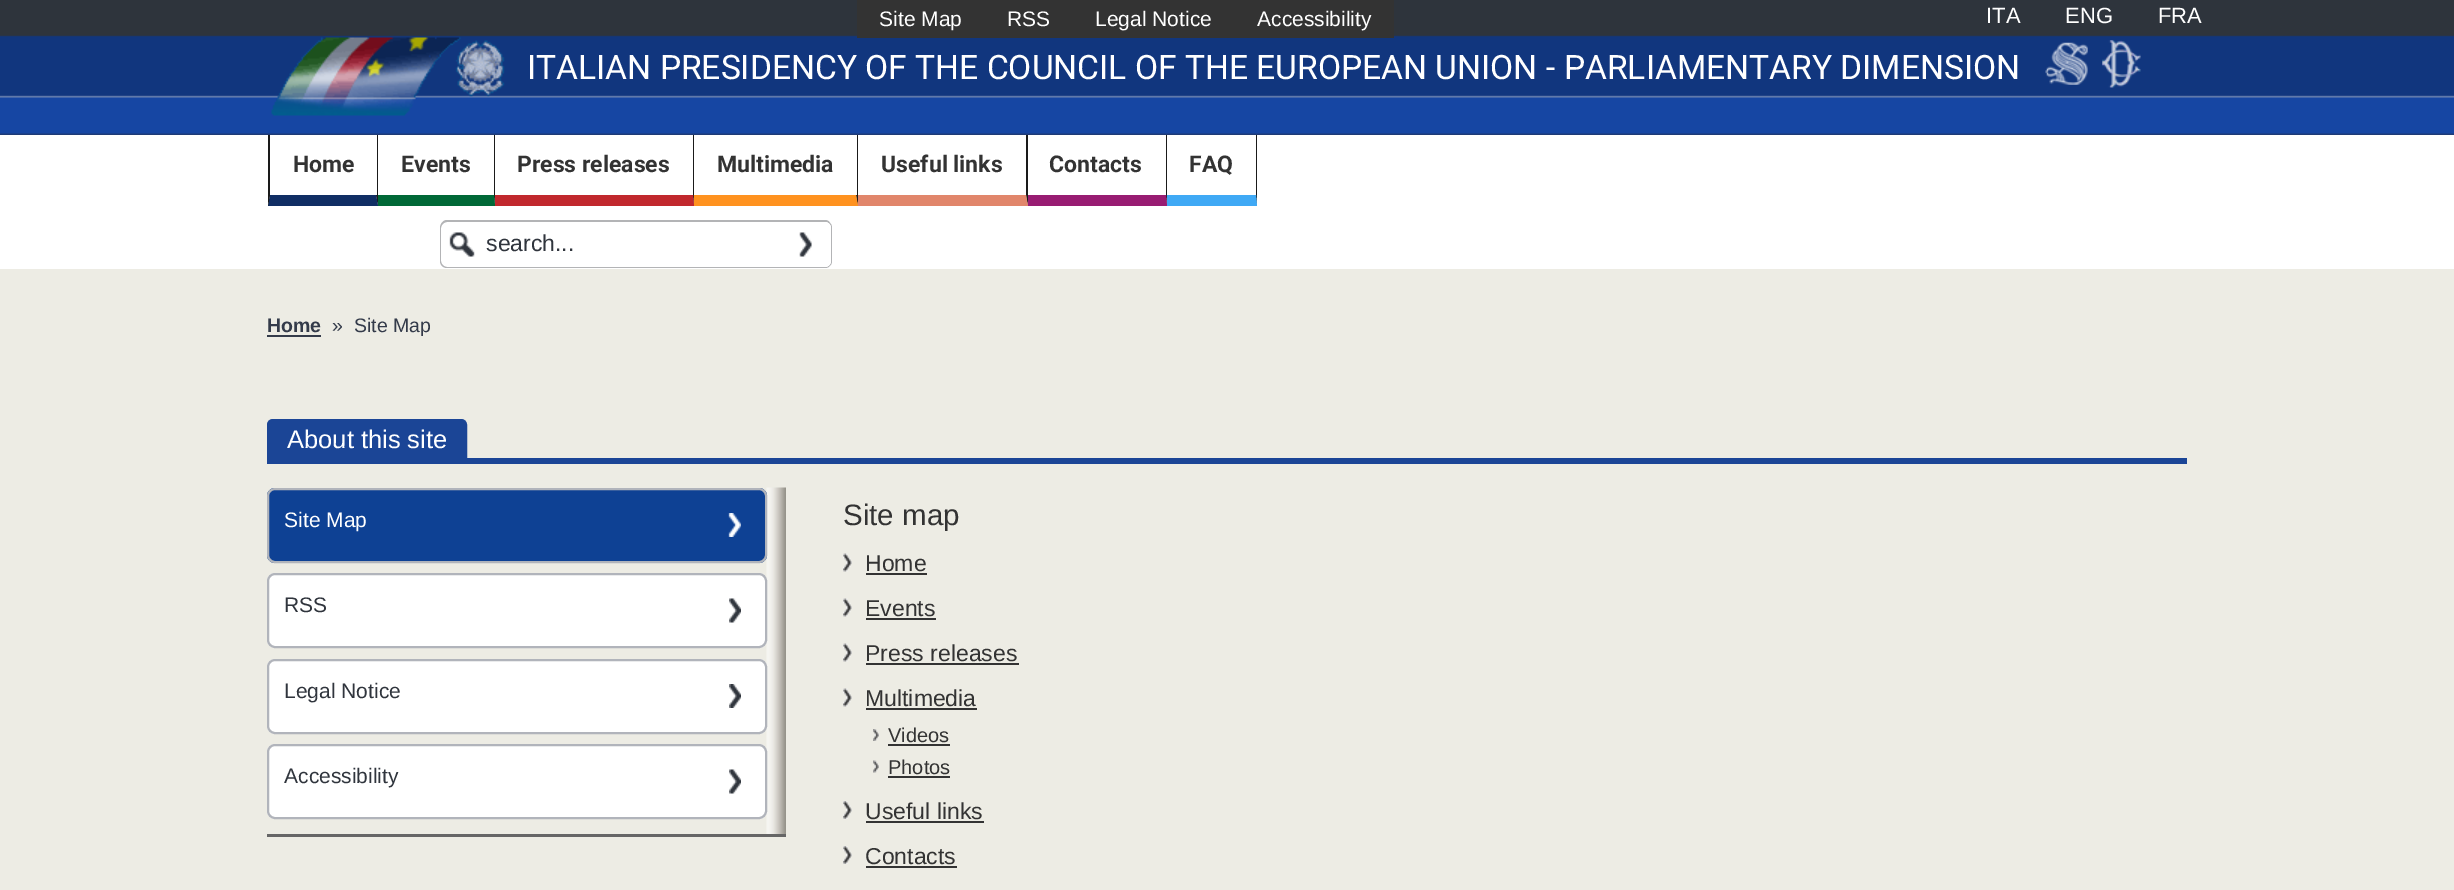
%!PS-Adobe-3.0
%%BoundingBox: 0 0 2454 890
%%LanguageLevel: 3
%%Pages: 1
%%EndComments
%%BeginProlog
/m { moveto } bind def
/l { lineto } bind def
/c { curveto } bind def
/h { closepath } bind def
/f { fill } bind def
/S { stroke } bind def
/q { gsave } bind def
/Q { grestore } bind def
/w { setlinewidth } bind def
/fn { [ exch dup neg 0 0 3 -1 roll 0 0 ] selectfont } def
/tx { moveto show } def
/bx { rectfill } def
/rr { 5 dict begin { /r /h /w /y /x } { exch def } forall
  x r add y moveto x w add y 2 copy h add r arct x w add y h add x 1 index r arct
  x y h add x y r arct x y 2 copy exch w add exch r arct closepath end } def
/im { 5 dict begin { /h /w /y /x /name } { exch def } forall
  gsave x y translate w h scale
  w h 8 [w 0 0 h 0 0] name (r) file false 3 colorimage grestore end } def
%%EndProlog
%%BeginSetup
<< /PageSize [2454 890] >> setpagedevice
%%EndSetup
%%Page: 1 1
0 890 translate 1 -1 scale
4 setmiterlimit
0.929 0.925 0.894 setrgbcolor
0 0 2454 890 bx
1 setgray
0 135 2454 134 bx
0.118 0.227 0.463 setrgbcolor
0 133 2454 2 bx
(image0.raw) 0 0 2454 134 im
0.2 setgray
857 0 537 38 bx
/LiberationSans-Regular 21 fn
1 setgray
(Site Map) 879 26 tx
(RSS) 1007 26 tx
(Legal Notice) 1095 26 tx
(Accessibility) 1257 26 tx
/LiberationSans-Regular 22 fn
(ITA) 1986 23 tx
(ENG) 2065 23 tx
(FRA) 2158 23 tx
(image1.raw) 271 37 234 79 im
/Roboto-Regular 33.6 fn
(ITALIAN PRESIDENCY OF THE COUNCIL OF THE EUROPEAN UNION) 527 79 tx
(- PARLIAMENTARY DIMENSION) 1546 79 tx
(image2.raw) 2045 42 43 43 im
(image3.raw) 2102 40 39 48 im
0.102 setgray
378 135 m 378 206 l 376 195 l 376 135 l h f
0.063 0.18 0.392 setrgbcolor
378 206 m 268 206 l 270 195 l 376 195 l h f
0.102 setgray
268 206 m 268 135 l 270 135 l 270 195 l h f
1 setgray
376 135 1 60 bx
/Roboto-Bold 23 fn
0.2 setgray
(Home) 293 172 tx
0.102 setgray
495 135 m 495 206 l 494 195 l 494 135 l h f
0 0.408 0.216 setrgbcolor
495 206 m 378 206 l 378 195 l 494 195 l h f
0.2 setgray
(Events) 401 172 tx
0.102 setgray
694 135 m 694 206 l 693 195 l 693 135 l h f
0.757 0.157 0.176 setrgbcolor
694 206 m 495 206 l 495 195 l 693 195 l h f
0.2 setgray
(Press releases) 517 172 tx
0.102 setgray
858 135 m 858 206 l 856 195 l 856 135 l h f
1 0.573 0.122 setrgbcolor
858 206 m 694 206 l 694 195 l 856 195 l h f
1 setgray
856 135 1 60 bx
0.2 setgray
(Multimedia) 717 172 tx
0.102 setgray
1028 135 m 1028 206 l 1026 195 l 1026 135 l h f
0.882 0.525 0.42 setrgbcolor
1028 206 m 858 206 l 858 195 l 1026 195 l h f
0.2 setgray
(Useful links) 881 172 tx
0.102 setgray
1167 135 m 1167 206 l 1166 195 l 1166 135 l h f
0.596 0.11 0.447 setrgbcolor
1167 206 m 1028 206 l 1028 195 l 1166 195 l h f
0.2 setgray
(Contacts) 1049 172 tx
0.102 setgray
1257 135 m 1257 206 l 1256 195 l 1256 135 l h f
0.247 0.663 0.961 setrgbcolor
1257 206 m 1167 206 l 1167 195 l 1256 195 l h f
0.2 setgray
(FAQ) 1189 172 tx
(image4.raw) 449 232 26 25 im
0.702 0.706 0.714 setrgbcolor
447 220 m 800 220 l 800 268 l 447 268 l 443 268 440 265 440 261 c 440 228 l 440 224 443 220 447 220 c h 447 222 m 800 222 l 800 267 l 447 267 l 444 267 441 264 441 261 c 441 228 l 441 225 444 222 447 222 c h eofill
/LiberationSans-Regular 23 fn
0.188 0.208 0.239 setrgbcolor
(search...) 486 251 tx
0.702 0.706 0.714 setrgbcolor
800 220 m 825 220 l 829 220 832 224 832 228 c 832 261 l 832 265 829 268 825 268 c 800 268 l h 800 222 m 825 222 l 828 222 831 225 831 228 c 831 261 l 831 264 828 267 825 267 c 800 267 l h eofill
(image5.raw) 799 222 32 45 im
/LiberationSans-Bold 19.5 fn
0.204 0.231 0.29 setrgbcolor
(Home) 267 332 tx
267 335 54 2 bx
/LiberationSans-Regular 19.5 fn
(») 332 332 tx
(Site Map) 354 332 tx
0.106 0.271 0.588 setrgbcolor
267 458 1920 6 bx
273 420 m 461 420 l 464 420 466 422 466 425 c 466 457 l 268 457 l 268 425 l 268 422 270 420 273 420 c h q f Q
2 w
S
/LiberationSans-Regular 25.5 fn
1 setgray
(About this site) 287 448 tx
(image6.raw) 766 487 20 347 im
0.4 setgray
267 834 519 3 bx
0.055 0.255 0.58 setrgbcolor
267 488 500 75 8 rr f
(image7.raw) 728 513 13 24 im
0.694 0.706 0.733 setrgbcolor
268 489 498 73 7 rr S
/LiberationSans-Regular 21 fn
1 setgray
(Site Map) 284 527 tx
267 573 500 75 8 rr f
(image8.raw) 729 598 12 25 im
0.694 0.706 0.733 setrgbcolor
268 574 498 73 7 rr S
0.188 0.208 0.239 setrgbcolor
(RSS) 284 612 tx
1 setgray
267 659 500 75 8 rr f
(image9.raw) 729 684 12 24 im
0.694 0.706 0.733 setrgbcolor
268 660 498 73 7 rr S
0.188 0.208 0.239 setrgbcolor
(Legal Notice) 284 698 tx
1 setgray
267 744 500 75 8 rr f
(image8.raw) 729 769 12 25 im
0.694 0.706 0.733 setrgbcolor
268 745 498 73 7 rr S
0.188 0.208 0.239 setrgbcolor
(Accessibility) 284 783 tx
/LiberationSans-Regular 29.5 fn
0.2 setgray
(Site map) 843 525 tx
(image10.raw) 843 553 9 19 im
/LiberationSans-Regular 23 fn
(Home) 865 571 tx
866 573 61 2 bx
(image10.raw) 843 598 9 19 im
(Events) 865 616 tx
866 618 70 2 bx
(image10.raw) 843 643 9 19 im
(Press releases) 865 661 tx
866 663 153 2 bx
(image10.raw) 843 688 9 19 im
(Multimedia) 865 706 tx
866 708 111 2 bx
(image11.raw) 873 729 6 12 im
/LiberationSans-Regular 20 fn
(Videos) 888 742 tx
888 744 62 2 bx
(image12.raw) 873 760 6 13 im
(Photos) 888 774 tx
888 776 62 2 bx
(image13.raw) 843 801 9 18 im
/LiberationSans-Regular 23 fn
(Useful links) 865 819 tx
866 821 118 2 bx
(image13.raw) 843 846 9 18 im
(Contacts) 865 864 tx
866 866 91 2 bx
showpage
%%EOF
